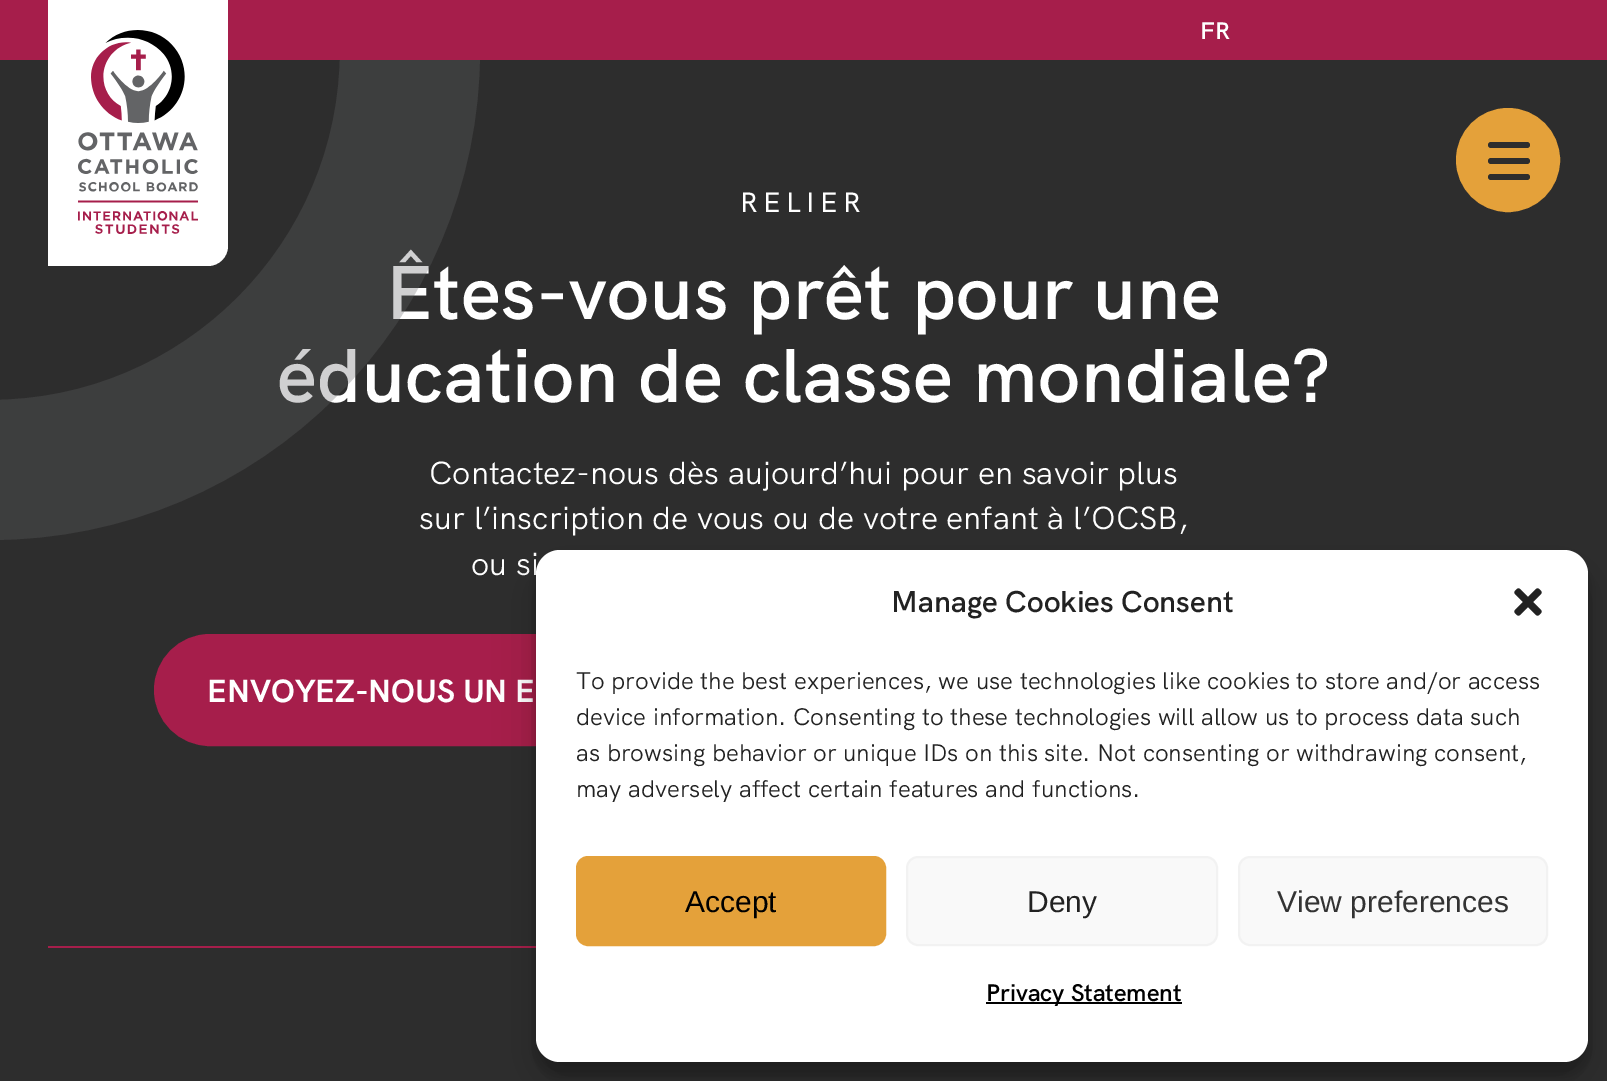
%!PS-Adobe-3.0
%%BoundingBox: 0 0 1607 1081
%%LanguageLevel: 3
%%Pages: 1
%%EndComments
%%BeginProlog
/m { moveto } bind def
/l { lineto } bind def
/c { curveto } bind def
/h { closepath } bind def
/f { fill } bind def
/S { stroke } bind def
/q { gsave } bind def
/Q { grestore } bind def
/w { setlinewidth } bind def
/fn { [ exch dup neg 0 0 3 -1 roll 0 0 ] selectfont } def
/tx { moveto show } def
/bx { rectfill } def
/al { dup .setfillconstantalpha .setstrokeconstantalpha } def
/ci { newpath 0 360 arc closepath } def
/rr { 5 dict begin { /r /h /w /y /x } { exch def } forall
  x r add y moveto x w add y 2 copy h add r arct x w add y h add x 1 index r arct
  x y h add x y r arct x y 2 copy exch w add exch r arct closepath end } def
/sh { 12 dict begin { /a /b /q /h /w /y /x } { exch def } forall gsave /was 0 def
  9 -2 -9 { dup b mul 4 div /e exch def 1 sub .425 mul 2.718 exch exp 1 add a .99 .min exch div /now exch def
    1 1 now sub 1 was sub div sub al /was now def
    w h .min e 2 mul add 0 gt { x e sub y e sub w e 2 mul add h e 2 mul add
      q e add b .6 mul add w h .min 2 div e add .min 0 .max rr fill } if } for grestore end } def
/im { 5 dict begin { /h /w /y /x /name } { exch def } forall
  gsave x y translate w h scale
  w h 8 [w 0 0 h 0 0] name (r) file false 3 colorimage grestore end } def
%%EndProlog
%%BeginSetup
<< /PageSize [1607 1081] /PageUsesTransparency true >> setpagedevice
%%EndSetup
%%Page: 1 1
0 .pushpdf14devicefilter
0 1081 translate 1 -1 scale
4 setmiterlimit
0.176 setgray
0 0 1607 1081 bx
/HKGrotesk-SemiBold 76 fn
1 setgray
386 319 m 0.5 0 (Êtes-vous prêt pour une) ashow
277 402 m 0.5 0 (éducation de classe mondiale?) ashow
/HKGrotesk-Regular 32 fn
(Contactez-nous dès aujourd’hui pour en savoir plus) 429 484 tx
(sur l’inscription de vous ou de votre enfant à l’OCSB,) 419 529 tx
0.3 al
0.388 0.392 0.4 setrgbcolor
140 w
-10 50 420 ci S
1 al
0.651 0.118 0.294 setrgbcolor
0 0 1607 60 bx
1 setgray
48 0 m 228 0 l 228 246 l 228 257 219 266 208 266 c 48 266 l h f
(image0.raw) 78 30 120 204 im
/HKGrotesk-SemiBold 24 fn
(FR) 1200 39 tx
0.894 0.631 0.227 setrgbcolor
1508 160 50 ci q f Q
4 w
S
0.176 setgray
1488 142 42 6 3 rr f
1488 158 42 6 3 rr f
1488 174 42 6 3 rr f
0.651 0.118 0.294 setrgbcolor
48 946 488 2 bx
/HKGrotesk-Medium 28 fn
1 setgray
740 212 m 5.5 0 (RELIER) ashow
/HKGrotesk-Regular 32 fn
(ou si) 471 575 tx
0.651 0.118 0.294 setrgbcolor
156 636 504 108 54 rr q f Q
S
/HKGrotesk-Bold 32 fn
1 setgray
(ENVOYEZ-NOUS UN E) 207 702 tx
0 setgray
536 562 1052 512 24 6 0.23 sh
536 570 1052 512 24 20 0.19 sh
1 setgray
536 550 1052 512 24 rr f
/HKGrotesk-SemiBold 30 fn
0.133 setgray
(Manage Cookies Consent) 891 612 tx
(image1.raw) 1514 588 28 28 im
/HKGrotesk-Regular 24 fn
(To provide the best experiences, we use technologies like cookies to store and/or access) 576 689 tx
(device information. Consenting to these technologies will allow us to process data such) 576 725 tx
(as browsing behavior or unique IDs on this site. Not consenting or withdrawing consent,) 576 761 tx
(may adversely affect certain features and functions.) 576 797 tx
0.894 0.631 0.227 setrgbcolor
577 857 308 88 11 rr q f Q
2 w
S
/LiberationSans-Regular 30 fn
0 setgray
(Accept) 685 912 tx
0.976 setgray
907 857 310 88 11 rr q f Q
0.949 setgray
S
0.133 setgray
(Deny) 1027 912 tx
0.976 setgray
1239 857 308 88 11 rr q f Q
0.949 setgray
S
0.2 setgray
(View preferences) 1277 912 tx
0 setgray
986 1002 196 2 bx
/HKGrotesk-SemiBold 24 fn
(Privacy Statement) 986 1001 tx
.poppdf14devicefilter showpage
%%EOF
